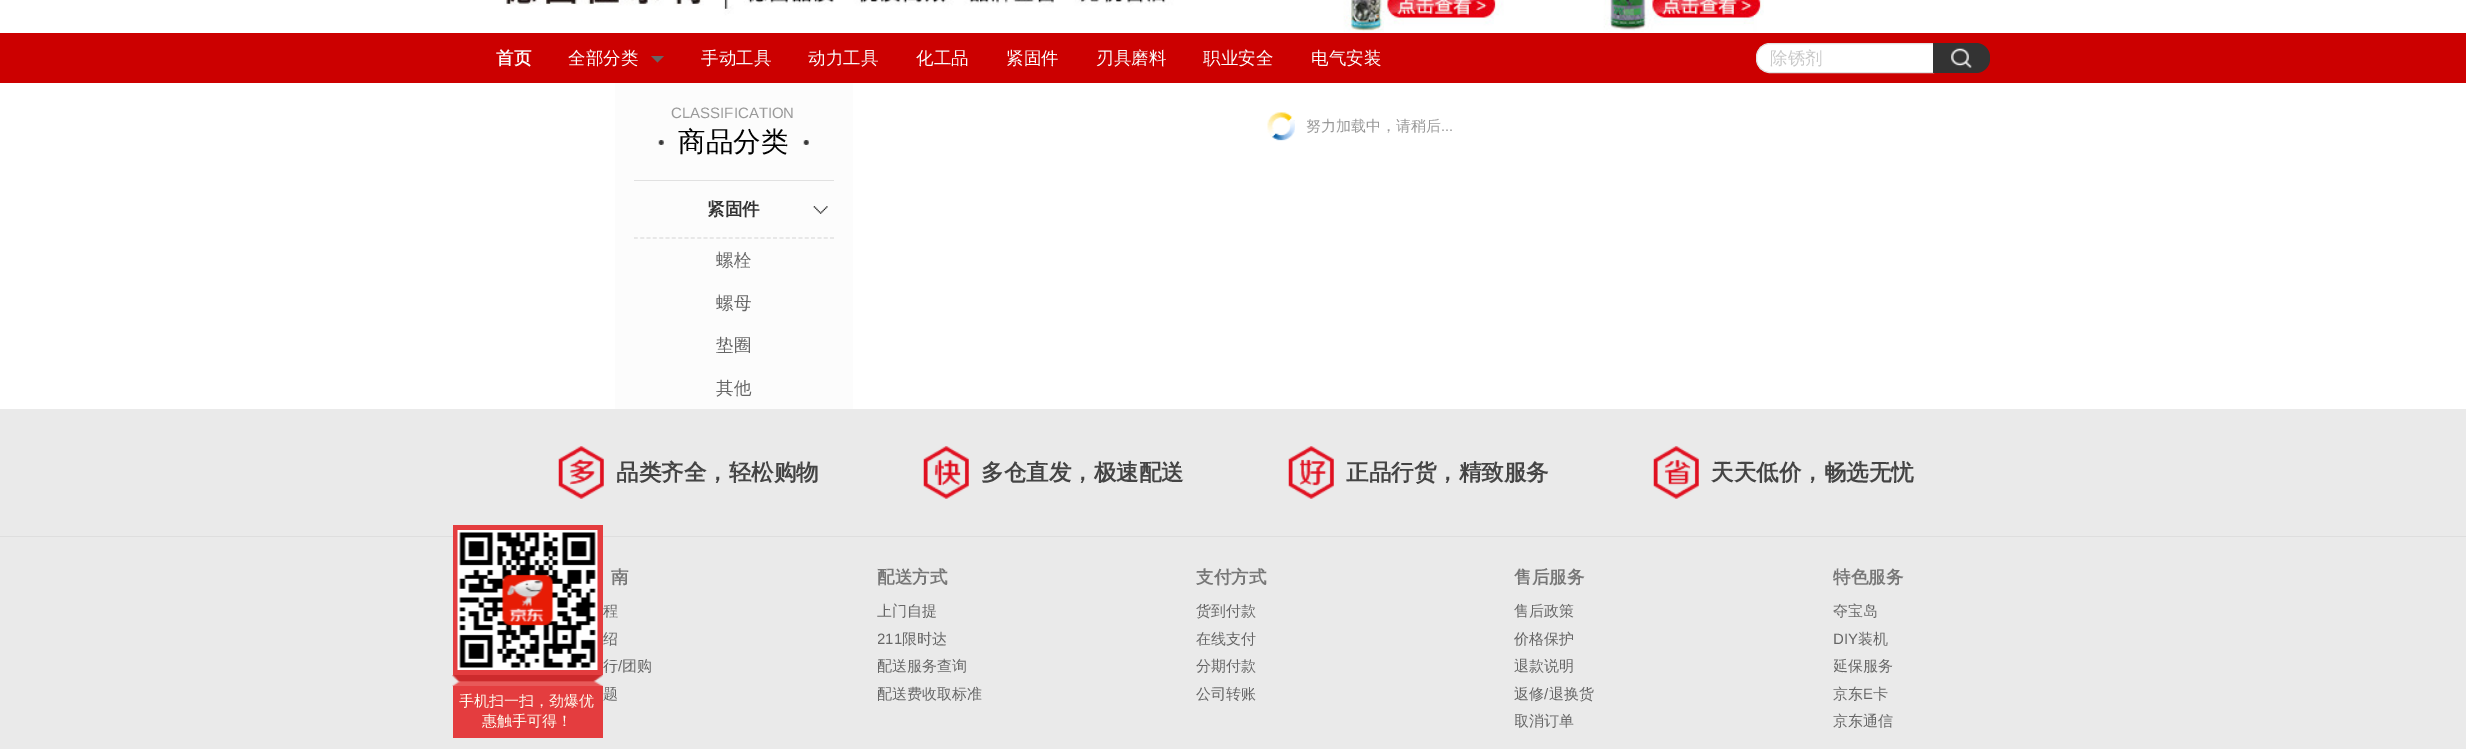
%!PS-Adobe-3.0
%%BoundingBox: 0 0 2466 749
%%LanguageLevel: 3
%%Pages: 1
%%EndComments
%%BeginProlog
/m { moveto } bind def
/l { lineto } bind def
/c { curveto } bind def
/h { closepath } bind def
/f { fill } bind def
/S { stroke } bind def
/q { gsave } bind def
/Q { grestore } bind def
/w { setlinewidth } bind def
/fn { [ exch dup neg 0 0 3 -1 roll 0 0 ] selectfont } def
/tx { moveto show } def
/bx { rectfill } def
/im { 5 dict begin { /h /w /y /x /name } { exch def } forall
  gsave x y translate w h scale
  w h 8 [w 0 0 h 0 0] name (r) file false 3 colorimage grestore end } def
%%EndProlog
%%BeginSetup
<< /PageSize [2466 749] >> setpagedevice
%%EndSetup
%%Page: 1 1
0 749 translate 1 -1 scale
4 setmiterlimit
1 setgray
0 0 2466 749 bx
(image0.raw) 504 0 1260 32 im
0.8 0 0 setrgbcolor
0 33 2466 50 bx
/WenQuanYiZenHei-Bold 17.5 fn
0.988 setgray
(首页) 496 64 tx
/WenQuanYiZenHei-Medium 17.5 fn
(全部分类) 568 64 tx
0.4 setgray
651 56 m 664 56 l 657.5 62.5 l h f
0.988 setgray
(手动工具) 701 64 tx
(动力工具) 808 64 tx
(化工品) 916 64 tx
(紧固件) 1006 64 tx
(刃具磨料) 1096 64 tx
(职业安全) 1203 64 tx
(电气安装) 1311 64 tx
1 setgray
1770 43.5 m 1933.5 43.5 l 1933.5 72.5 l 1770 72.5 l 1762.5 72.5 1756.5 66.5 1756.5 59 c 1756.5 57 l 1756.5 49.5 1762.5 43.5 1770 43.5 c h q f Q
0.882 setgray
S
0.788 setgray
(除锈剂) 1770 64 tx
0.2 setgray
1933 43 m 1976 43 l 1983.5 43 1990 49.5 1990 57 c 1990 59 l 1990 66.5 1983.5 73 1976 73 c 1933 73 l h f
(image1.raw) 1951 48 21 20 im
0.988 setgray
615 83 238 326 bx
/LiberationSans-Regular 15 fn
0.6 setgray
(CLASSIFICATION) 671 118 tx
0.882 setgray
634 180 200 1 bx
(image2.raw) 658 140 6 5 im
/WenQuanYiZenHei-Medium 27.5 fn
0 setgray
(商品分类) 678 151 tx
(image3.raw) 803 140 6 5 im
0.882 setgray
1.2 w
[3.75 2.58] 0 setdash
634 238 m 834 238 l S
/WenQuanYiZenHei-Bold 17.5 fn
0.2 setgray
(紧固件) 707 215 tx
(image4.raw) 813 206 15 8 im
/WenQuanYiZenHei-Medium 17.5 fn
0.4 setgray
(螺栓) 716 266 tx
(螺母) 716 309 tx
(垫圈) 716 351 tx
(其他) 716 394 tx
(image5.raw) 1267 112 28 29 im
/WenQuanYiZenHei-Medium 15 fn
0.6 setgray
(努力加载中，请稍后) 1306 131 tx
/LiberationSans-Regular 15 fn
(...) 1441 131 tx
0.918 setgray
0 409 2466 340 bx
0.871 setgray
0 536 2466 1 bx
0.894 0.239 0.247 setrgbcolor
453 525 150 150 bx
(image6.raw) 457 530 141 140 im
(image7.raw) 452 675 151 12 im
453 686 150 52 bx
/WenQuanYiZenHei-Medium 15 fn
1 0.984 0.933 setrgbcolor
(手机扫一扫，劲爆优) 459 706 tx
(惠触手可得！) 482 726 tx
(image8.raw) 558 446 46 53 im
/WenQuanYiZenHei-Bold 22.5 fn
0.267 setgray
(品类齐全，轻松购物) 616 480 tx
(image9.raw) 923 446 46 53 im
(多仓直发，极速配送) 981 480 tx
(image10.raw) 1288 446 46 53 im
(正品行货，精致服务) 1346 480 tx
(image11.raw) 1653 446 46 53 im
(天天低价，畅选无忧) 1711 480 tx
/WenQuanYiZenHei-Bold 17.5 fn
0.467 setgray
(南) 611 583 tx
/WenQuanYiZenHei-Medium 15 fn
0.4 setgray
(程) 603 616 tx
(绍) 603 644 tx
(行) 603 671 tx
/LiberationSans-Regular 15 fn
(/) 618 671 tx
/WenQuanYiZenHei-Medium 15 fn
(团购) 622 671 tx
(题) 603 699 tx
/WenQuanYiZenHei-Bold 17.5 fn
0.467 setgray
(配送方式) 877 583 tx
/WenQuanYiZenHei-Medium 15 fn
0.4 setgray
(上门自提) 877 616 tx
q
878 625 318 28 rectclip
/LiberationSans-Regular 15 fn
(211) 877 644 tx
Q
(限时达) 902 644 tx
q
878 653 318 27 rectclip
(配送服务查询) 877 671 tx
Q
q
878 680 318 28 rectclip
(配送费收取标准) 877 699 tx
Q
/WenQuanYiZenHei-Bold 17.5 fn
0.467 setgray
(支付方式) 1196 583 tx
/WenQuanYiZenHei-Medium 15 fn
0.4 setgray
(货到付款) 1196 616 tx
(在线支付) 1196 644 tx
(分期付款) 1196 671 tx
(公司转账) 1196 699 tx
/WenQuanYiZenHei-Bold 17.5 fn
0.467 setgray
(售后服务) 1514 583 tx
/WenQuanYiZenHei-Medium 15 fn
0.4 setgray
(售后政策) 1514 616 tx
(价格保护) 1514 644 tx
(退款说明) 1514 671 tx
(返修) 1514 699 tx
/LiberationSans-Regular 15 fn
(/) 1544 699 tx
/WenQuanYiZenHei-Medium 15 fn
(退换货) 1549 699 tx
q
1515 708 319 27 rectclip
(取消订单) 1514 726 tx
Q
/WenQuanYiZenHei-Bold 17.5 fn
0.467 setgray
(特色服务) 1833 583 tx
/WenQuanYiZenHei-Medium 15 fn
0.4 setgray
(夺宝岛) 1833 616 tx
/LiberationSans-Regular 15 fn
(DIY) 1833 644 tx
/WenQuanYiZenHei-Medium 15 fn
(装机) 1858 644 tx
q
1834 653 319 27 rectclip
(延保服务) 1833 671 tx
Q
(京东) 1833 699 tx
/LiberationSans-Regular 15 fn
(E) 1863 699 tx
/WenQuanYiZenHei-Medium 15 fn
(卡) 1873 699 tx
(京东通信) 1833 726 tx
showpage
%%EOF
